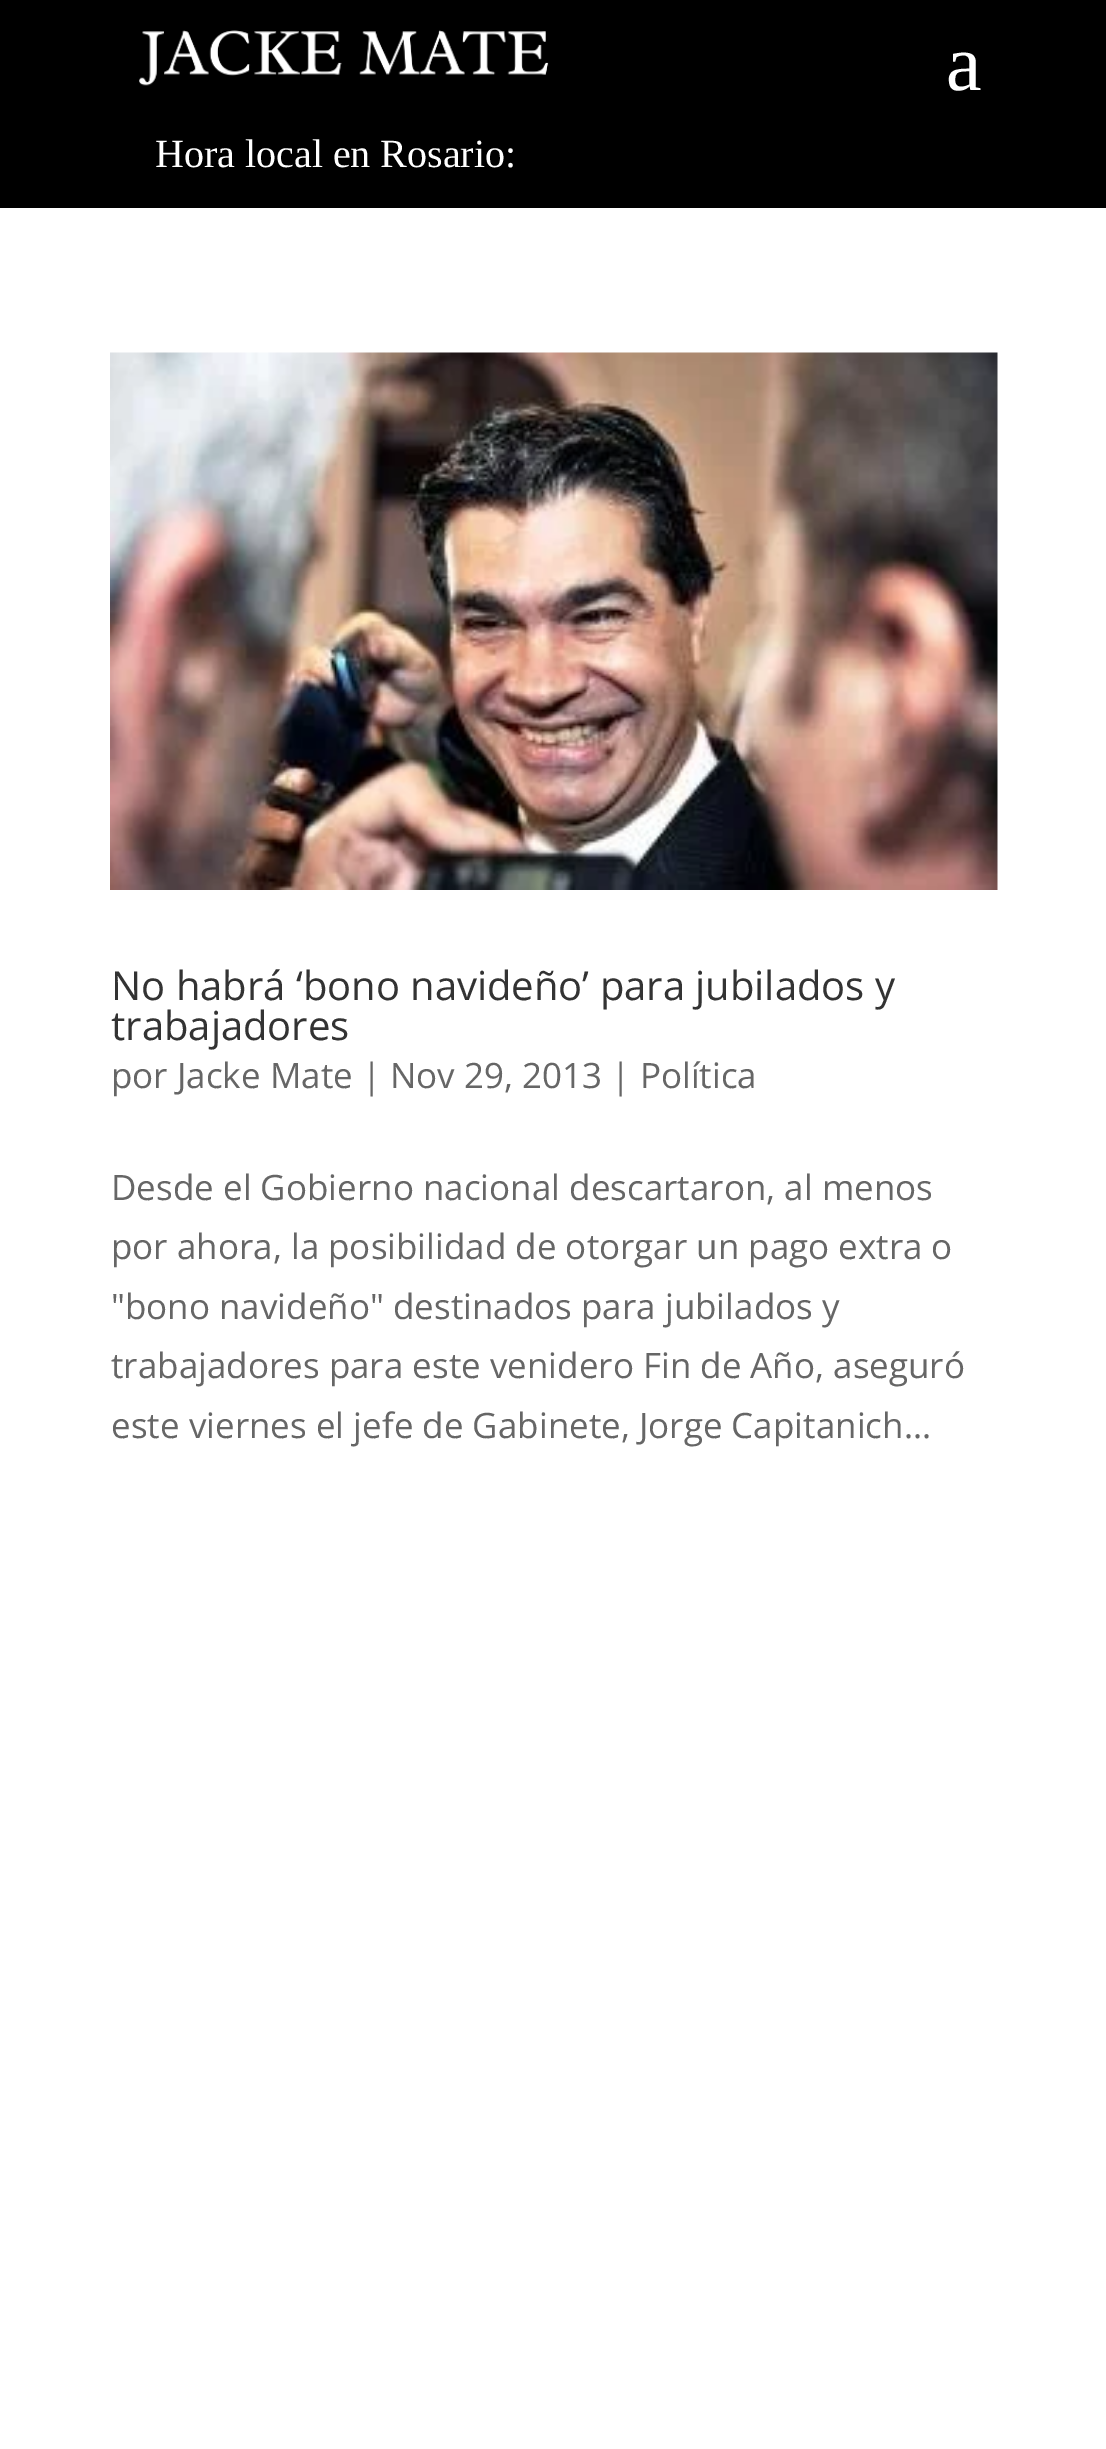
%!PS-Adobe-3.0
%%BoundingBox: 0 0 1106 2449
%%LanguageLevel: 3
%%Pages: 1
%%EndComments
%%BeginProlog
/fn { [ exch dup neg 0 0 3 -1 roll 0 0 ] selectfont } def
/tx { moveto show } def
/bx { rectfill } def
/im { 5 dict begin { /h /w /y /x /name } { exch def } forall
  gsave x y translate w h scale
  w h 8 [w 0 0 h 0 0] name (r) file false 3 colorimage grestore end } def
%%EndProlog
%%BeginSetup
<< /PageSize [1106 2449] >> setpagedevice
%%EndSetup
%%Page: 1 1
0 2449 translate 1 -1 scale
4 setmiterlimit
1 setgray
0 0 1106 2449 bx
0 setgray
0 0 1106 208 bx
(image0.raw) 139 30 410 56 im
/LiberationSerif-Regular 80 fn
1 setgray
(a) 946 90 tx
/LiberationSerif-Regular 40 fn
(Hora local en Rosario:) 155 167 tx
(image1.raw) 110 352 888 538 im
/OpenSans-Regular 40 fn
0.2 setgray
(No habrá ‘bono navideño’ para jubilados y) 111 1000 tx
(trabajadores) 111 1040 tx
/OpenSans-Regular 35 fn
0.4 setgray
(por Jacke Mate | Nov 29, 2013 | Política) 111 1088 tx
(Desde el Gobierno nacional descartaron, al menos) 111 1200 tx
(por ahora, la posibilidad de otorgar un pago extra o) 111 1259 tx
("bono navideño" destinados para jubilados y) 111 1319 tx
(trabajadores para este venidero Fin de Año, aseguró) 111 1378 tx
(este viernes el jefe de Gabinete, Jorge Capitanich...) 111 1438 tx
showpage
%%EOF
